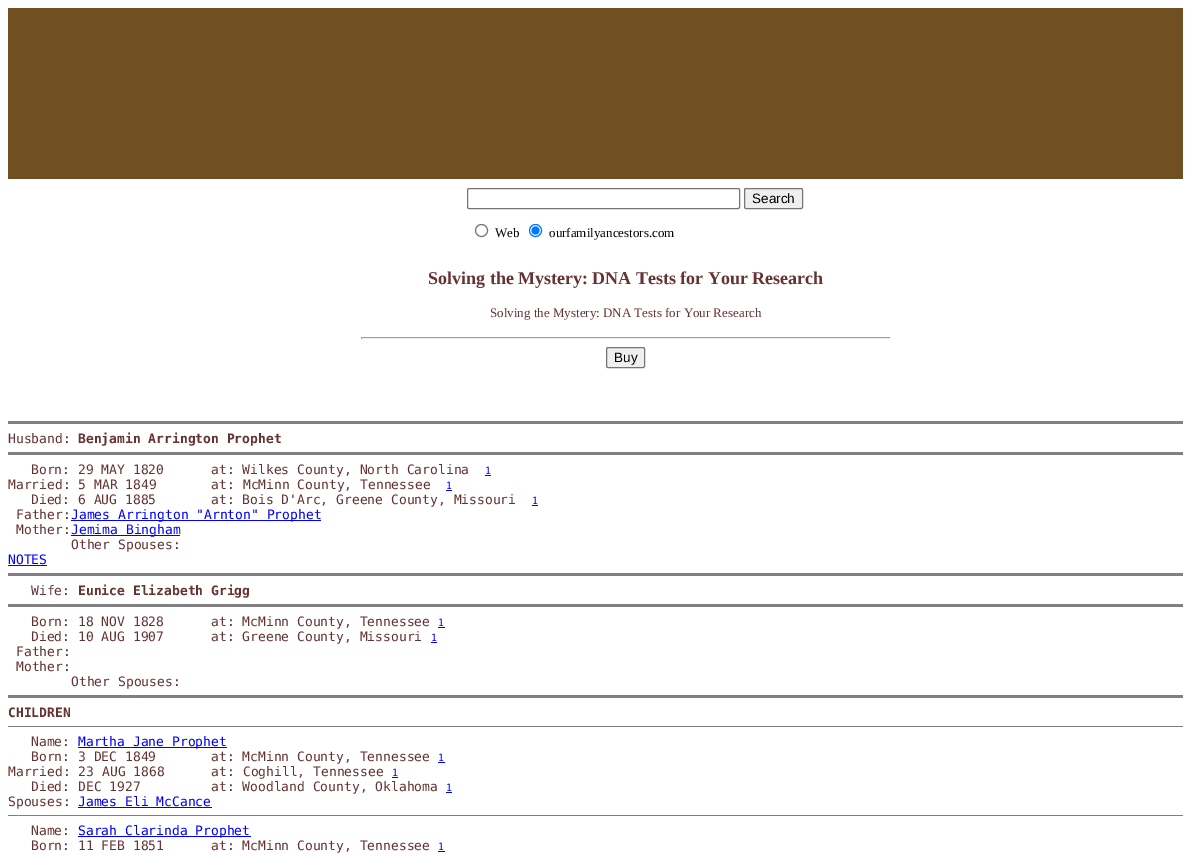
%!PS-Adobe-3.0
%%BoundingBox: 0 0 1191 855
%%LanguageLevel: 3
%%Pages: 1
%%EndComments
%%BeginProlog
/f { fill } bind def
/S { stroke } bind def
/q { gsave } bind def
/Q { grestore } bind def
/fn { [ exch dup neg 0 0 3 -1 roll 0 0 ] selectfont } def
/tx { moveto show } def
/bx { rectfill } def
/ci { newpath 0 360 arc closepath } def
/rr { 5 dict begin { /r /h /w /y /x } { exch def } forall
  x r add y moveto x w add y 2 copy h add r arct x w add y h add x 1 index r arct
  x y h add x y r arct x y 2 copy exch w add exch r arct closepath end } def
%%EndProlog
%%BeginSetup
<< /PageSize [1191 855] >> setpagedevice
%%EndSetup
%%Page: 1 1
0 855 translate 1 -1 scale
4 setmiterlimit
1 setgray
0 0 1191 855 bx
0.439 0.314 0.133 setrgbcolor
8 8 1175 171 bx
0.463 setgray
467.5 188.5 272 20 1.5 rr S
0.937 setgray
744.5 188.5 58 20 1.5 rr q f Q
0.463 setgray
S
/LiberationSans-Regular 13.5 fn
0 setgray
(Search) 752 203 tx
0.463 setgray
481.5 230.5 6 ci S
/LiberationSerif-Regular 13 fn
0 setgray
(Web) 495 237 tx
0 0.459 1 setrgbcolor
535.5 230.5 6 ci S
535.5 230.5 4 ci f
0 setgray
(ourfamilyancestors.com) 549 237 tx
/LiberationSerif-Bold 18 fn
0.4 0.2 0.2 setrgbcolor
(Solving the Mystery: DNA Tests for Your Research) 428 284 tx
/LiberationSerif-Regular 13 fn
(Solving the Mystery: DNA Tests for Your Research) 490 317 tx
0.624 setgray
361 337 530 1 bx
0.933 setgray
890 337 1 2 bx
361 338 530 1 bx
0.624 setgray
361 337 1 2 bx
0.937 setgray
606.5 347.5 38 20 1.5 rr q f Q
0.463 setgray
S
/LiberationSans-Regular 13.5 fn
0 setgray
(Buy) 614 362 tx
0.502 setgray
8 421 1175 3 bx
/DejaVuSansMono-Regular 13 fn
0.4 0.2 0.2 setrgbcolor
(Husband:) 8 443 tx
/DejaVuSansMono-Bold 13 fn
(Benjamin Arrington Prophet) 78 443 tx
0.502 setgray
8 452 1175 3 bx
/DejaVuSansMono-Regular 13 fn
0.4 0.2 0.2 setrgbcolor
(Born: 29 MAY 1820      at: Wilkes County, North Carolina) 31 474 tx
/DejaVuSansMono-Regular 10 fn
0 0 1 setrgbcolor
(1) 485 474 tx
485 475 6 1 bx
/DejaVuSansMono-Regular 13 fn
0.4 0.2 0.2 setrgbcolor
(Married: 5 MAR 1849       at: McMinn County, Tennessee) 8 489 tx
/DejaVuSansMono-Regular 10 fn
0 0 1 setrgbcolor
(1) 446 489 tx
446 490 6 1 bx
/DejaVuSansMono-Regular 13 fn
0.4 0.2 0.2 setrgbcolor
(Died: 6 AUG 1885       at: Bois D'Arc, Greene County, Missouri) 31 504 tx
/DejaVuSansMono-Regular 10 fn
0 0 1 setrgbcolor
(1) 532 504 tx
532 505 6 1 bx
/DejaVuSansMono-Regular 13 fn
0.4 0.2 0.2 setrgbcolor
(Father:) 16 519 tx
0 0 1 setrgbcolor
71 520 250 1 bx
(James Arrington "Arnton" Prophet) 71 519 tx
0.4 0.2 0.2 setrgbcolor
(Mother:) 16 534 tx
0 0 1 setrgbcolor
71 535 109 1 bx
(Jemima Bingham) 71 534 tx
0.4 0.2 0.2 setrgbcolor
(Other Spouses:) 71 549 tx
0 0 1 setrgbcolor
(NOTES) 8 564 tx
8 565 39 1 bx
0.502 setgray
8 573 1175 3 bx
0.4 0.2 0.2 setrgbcolor
(Wife:) 31 595 tx
/DejaVuSansMono-Bold 13 fn
(Eunice Elizabeth Grigg) 78 595 tx
0.502 setgray
8 604 1175 3 bx
/DejaVuSansMono-Regular 13 fn
0.4 0.2 0.2 setrgbcolor
(Born: 18 NOV 1828      at: McMinn County, Tennessee) 31 626 tx
/DejaVuSansMono-Regular 10 fn
0 0 1 setrgbcolor
(1) 438 626 tx
438 627 7 1 bx
/DejaVuSansMono-Regular 13 fn
0.4 0.2 0.2 setrgbcolor
(Died: 10 AUG 1907      at: Greene County, Missouri) 31 641 tx
/DejaVuSansMono-Regular 10 fn
0 0 1 setrgbcolor
(1) 431 641 tx
431 642 6 1 bx
/DejaVuSansMono-Regular 13 fn
0.4 0.2 0.2 setrgbcolor
(Father:) 16 656 tx
(Mother:) 16 671 tx
(Other Spouses:) 71 686 tx
0.502 setgray
8 695 1175 3 bx
/DejaVuSansMono-Bold 13 fn
0.4 0.2 0.2 setrgbcolor
(CHILDREN) 8 717 tx
0.502 setgray
8 726 1175 1 bx
/DejaVuSansMono-Regular 13 fn
0.4 0.2 0.2 setrgbcolor
(Name:) 31 746 tx
0 0 1 setrgbcolor
78 747 149 1 bx
(Martha Jane Prophet) 78 746 tx
0.4 0.2 0.2 setrgbcolor
(Born: 3 DEC 1849       at: McMinn County, Tennessee) 31 761 tx
/DejaVuSansMono-Regular 10 fn
0 0 1 setrgbcolor
(1) 438 761 tx
438 762 7 1 bx
/DejaVuSansMono-Regular 13 fn
0.4 0.2 0.2 setrgbcolor
(Married: 23 AUG 1868      at: Coghill, Tennessee) 8 776 tx
/DejaVuSansMono-Regular 10 fn
0 0 1 setrgbcolor
(1) 392 776 tx
392 777 6 1 bx
/DejaVuSansMono-Regular 13 fn
0.4 0.2 0.2 setrgbcolor
(Died: DEC 1927         at: Woodland County, Oklahoma) 31 791 tx
/DejaVuSansMono-Regular 10 fn
0 0 1 setrgbcolor
(1) 446 791 tx
446 792 6 1 bx
/DejaVuSansMono-Regular 13 fn
0.4 0.2 0.2 setrgbcolor
(Spouses:) 8 806 tx
0 0 1 setrgbcolor
(James Eli McCance) 78 806 tx
78 807 134 1 bx
0.502 setgray
8 815 1175 1 bx
0.4 0.2 0.2 setrgbcolor
(Name:) 31 835 tx
0 0 1 setrgbcolor
78 836 173 1 bx
(Sarah Clarinda Prophet) 78 835 tx
0.4 0.2 0.2 setrgbcolor
(Born: 11 FEB 1851      at: McMinn County, Tennessee) 31 850 tx
/DejaVuSansMono-Regular 10 fn
0 0 1 setrgbcolor
(1) 438 850 tx
438 851 7 1 bx
showpage
%%EOF
